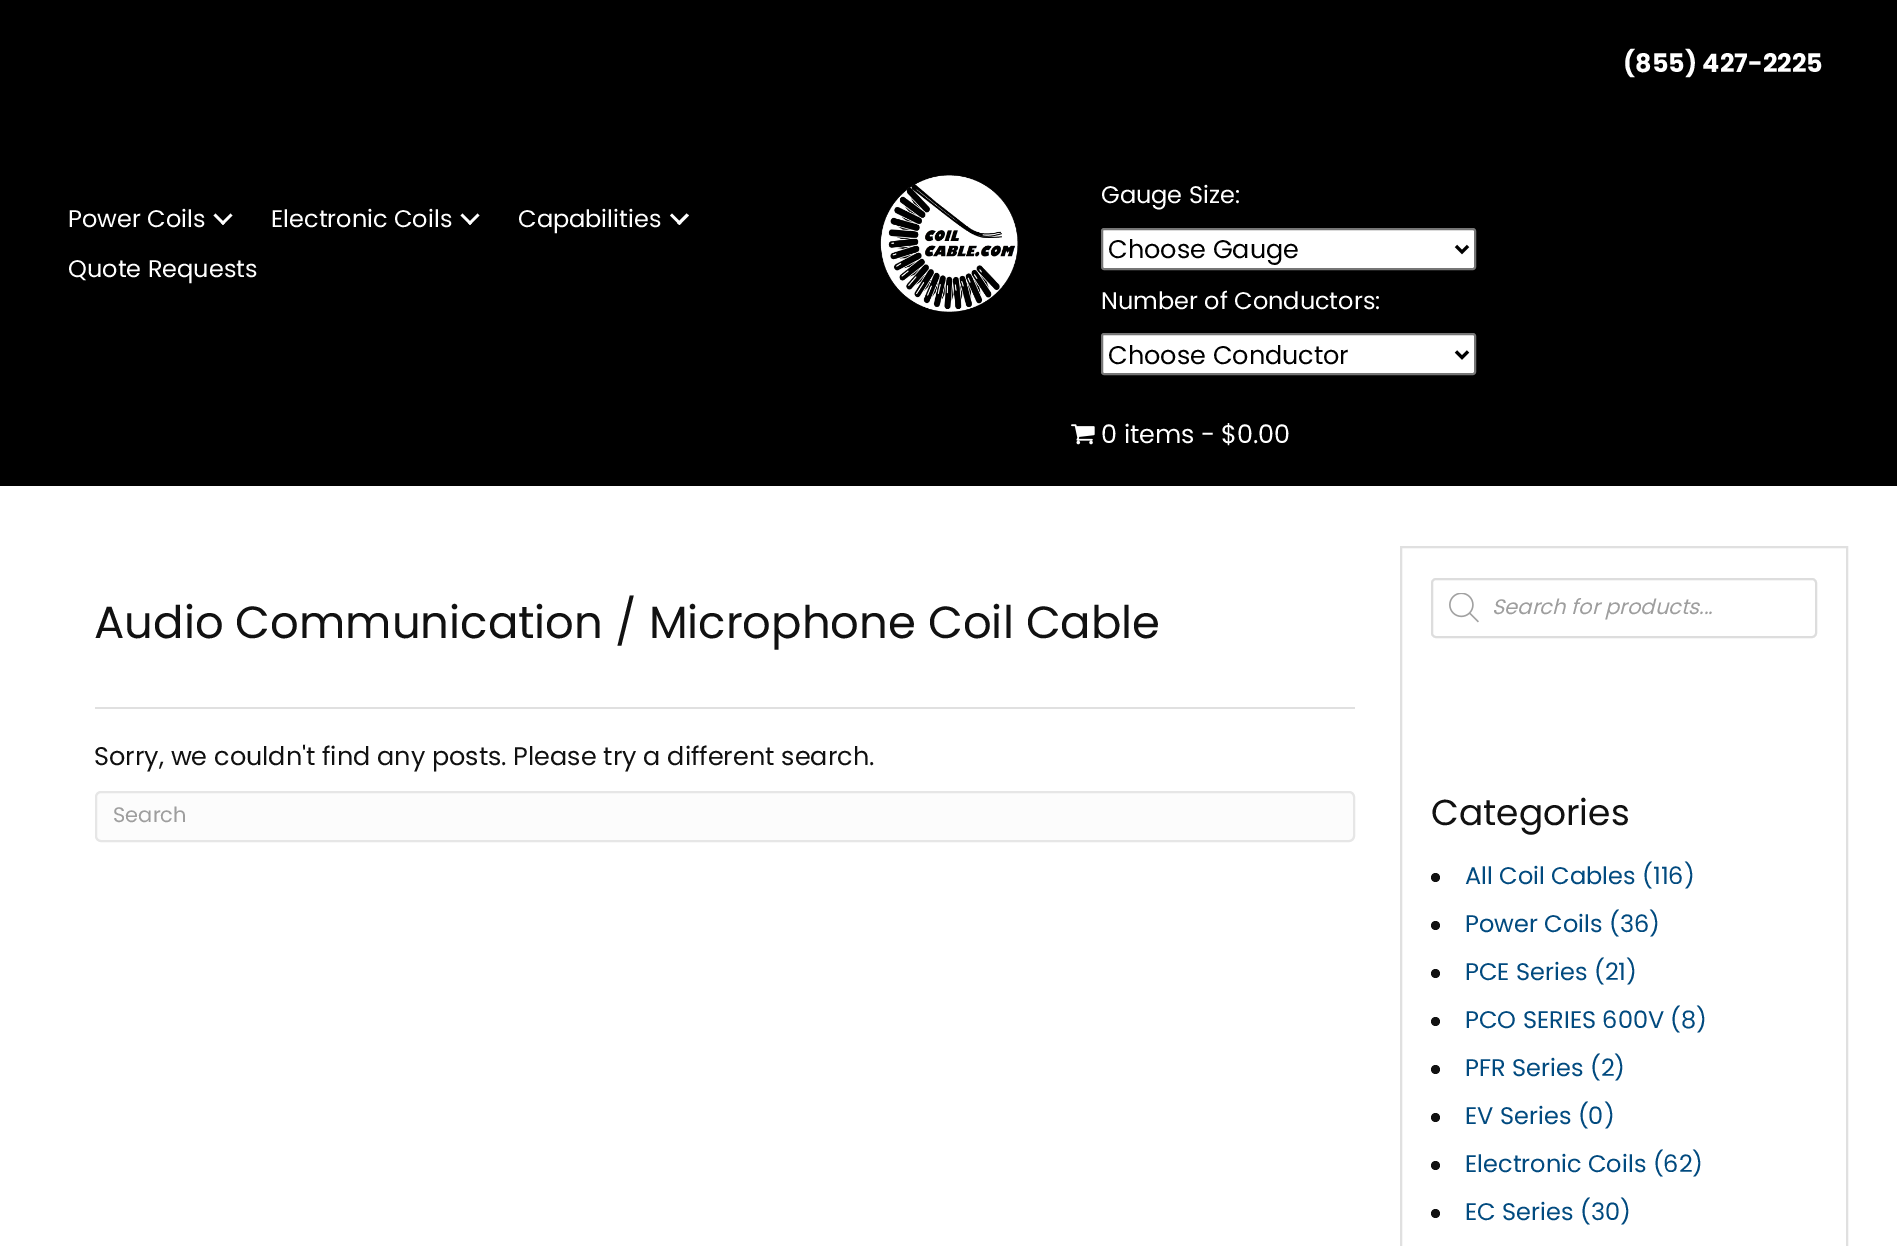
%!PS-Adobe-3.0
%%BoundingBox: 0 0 1897 1246
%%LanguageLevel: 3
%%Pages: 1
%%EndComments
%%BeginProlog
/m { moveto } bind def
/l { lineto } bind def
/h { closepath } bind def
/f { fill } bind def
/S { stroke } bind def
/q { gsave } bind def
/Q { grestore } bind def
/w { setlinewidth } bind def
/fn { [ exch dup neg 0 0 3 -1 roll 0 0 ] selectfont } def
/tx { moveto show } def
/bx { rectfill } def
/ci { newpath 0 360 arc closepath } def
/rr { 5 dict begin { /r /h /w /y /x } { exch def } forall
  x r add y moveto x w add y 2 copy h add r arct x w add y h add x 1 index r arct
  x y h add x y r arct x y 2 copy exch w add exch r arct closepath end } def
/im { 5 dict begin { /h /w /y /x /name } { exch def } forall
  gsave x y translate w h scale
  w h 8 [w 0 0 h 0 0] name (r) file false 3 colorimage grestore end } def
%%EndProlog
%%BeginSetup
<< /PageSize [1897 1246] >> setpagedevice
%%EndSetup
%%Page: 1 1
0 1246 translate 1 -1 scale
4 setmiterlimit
1 setgray
0 0 1897 1246 bx
0 setgray
0 0 1897 486 bx
/Poppins-Regular 24 fn
1 setgray
(Power Coils) 68 227 tx
230.5 213.5 m 232.5 215.5 l 223 225 l 221 223 l h f
215.5 213.5 m 225 223 l 223 225 l 213.5 215.5 l h f
(Electronic Coils) 271 227 tx
477.5 213.5 m 479.5 215.5 l 470 225 l 468 223 l h f
462.5 213.5 m 472 223 l 470 225 l 460.5 215.5 l h f
(Capabilities) 518 227 tx
686.5 213.5 m 689 215.5 l 679.5 225 l 677 223 l h f
672 213.5 m 681.5 223 l 679.5 225 l 670 215.5 l h f
(Quote Requests) 68 277 tx
(image0.raw) 880 175 139 137 im
/Poppins-Bold 25.5 fn
(\(855\) 427-2225) 1623 72 tx
/Poppins-Regular 24 fn
(Gauge Size:) 1101 203 tx
1102 229 373 40 2 rr q f Q
0.463 setgray
2 w
S
0 setgray
3 w
1456 246 m 1462 252 l 1468 246 l S
/Poppins-Regular 25.5 fn
(Choose Gauge) 1108 258 tx
/Poppins-Regular 24 fn
1 setgray
(Number of Conductors:) 1101 309 tx
1102 334 373 40 2 rr q f Q
0.463 setgray
2 w
S
0 setgray
3 w
1456 351.5 m 1462 357.5 l 1468 351.5 l S
/Poppins-Regular 25.5 fn
(Choose Conductor) 1108 364 tx
(image1.raw) 1071 424 24 21 im
1 setgray
(0 items) 1101 443 tx
(-) 1201 443 tx
($0.00) 1221 443 tx
/Poppins-Regular 45 fn
0.067 setgray
(Audio Communication / Microphone Coil Cable) 94 638 tx
0.878 setgray
95 707 1260 2 bx
/Poppins-Regular 25.5 fn
0.067 setgray
(Sorry, we couldn't find any posts. Please try a different search.) 94 765 tx
0.988 setgray
96 792 1258 49 5 rr q f Q
0.902 setgray
2 w
S
/Poppins-Regular 21 fn
0.62 setgray
(Search) 113 822 tx
0.878 setgray
1401 547 446 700 rectstroke
0.867 setgray
1432 579 384 58 4 rr S
(image2.raw) 1449 593 30 30 im
/Poppins-Italic 21 fn
0.62 setgray
(Search for products...) 1492 614 tx
/Poppins-Regular 36 fn
0.067 setgray
(Categories) 1431 825 tx
1435.5 877.5 4.5 ci f
/Poppins-Regular 24 fn
0.004 0.29 0.498 setrgbcolor
(All Coil Cables \(116\)) 1465 884 tx
0.067 setgray
1435.5 925.5 4.5 ci f
0.004 0.29 0.498 setrgbcolor
(Power Coils \(36\)) 1465 932 tx
0.067 setgray
1435.5 973.5 4.5 ci f
0.004 0.29 0.498 setrgbcolor
(PCE Series \(21\)) 1465 980 tx
0.067 setgray
1435.5 1021.5 4.5 ci f
0.004 0.29 0.498 setrgbcolor
(PCO SERIES 600V \(8\)) 1465 1028 tx
0.067 setgray
1435.5 1069.5 4.5 ci f
0.004 0.29 0.498 setrgbcolor
(PFR Series \(2\)) 1465 1076 tx
0.067 setgray
1435.5 1117.5 4.5 ci f
0.004 0.29 0.498 setrgbcolor
(EV Series \(0\)) 1465 1124 tx
0.067 setgray
1435.5 1165.5 4.5 ci f
0.004 0.29 0.498 setrgbcolor
(Electronic Coils \(62\)) 1465 1172 tx
0.067 setgray
1435.5 1213.5 4.5 ci f
0.004 0.29 0.498 setrgbcolor
(EC Series \(30\)) 1465 1220 tx
showpage
%%EOF
